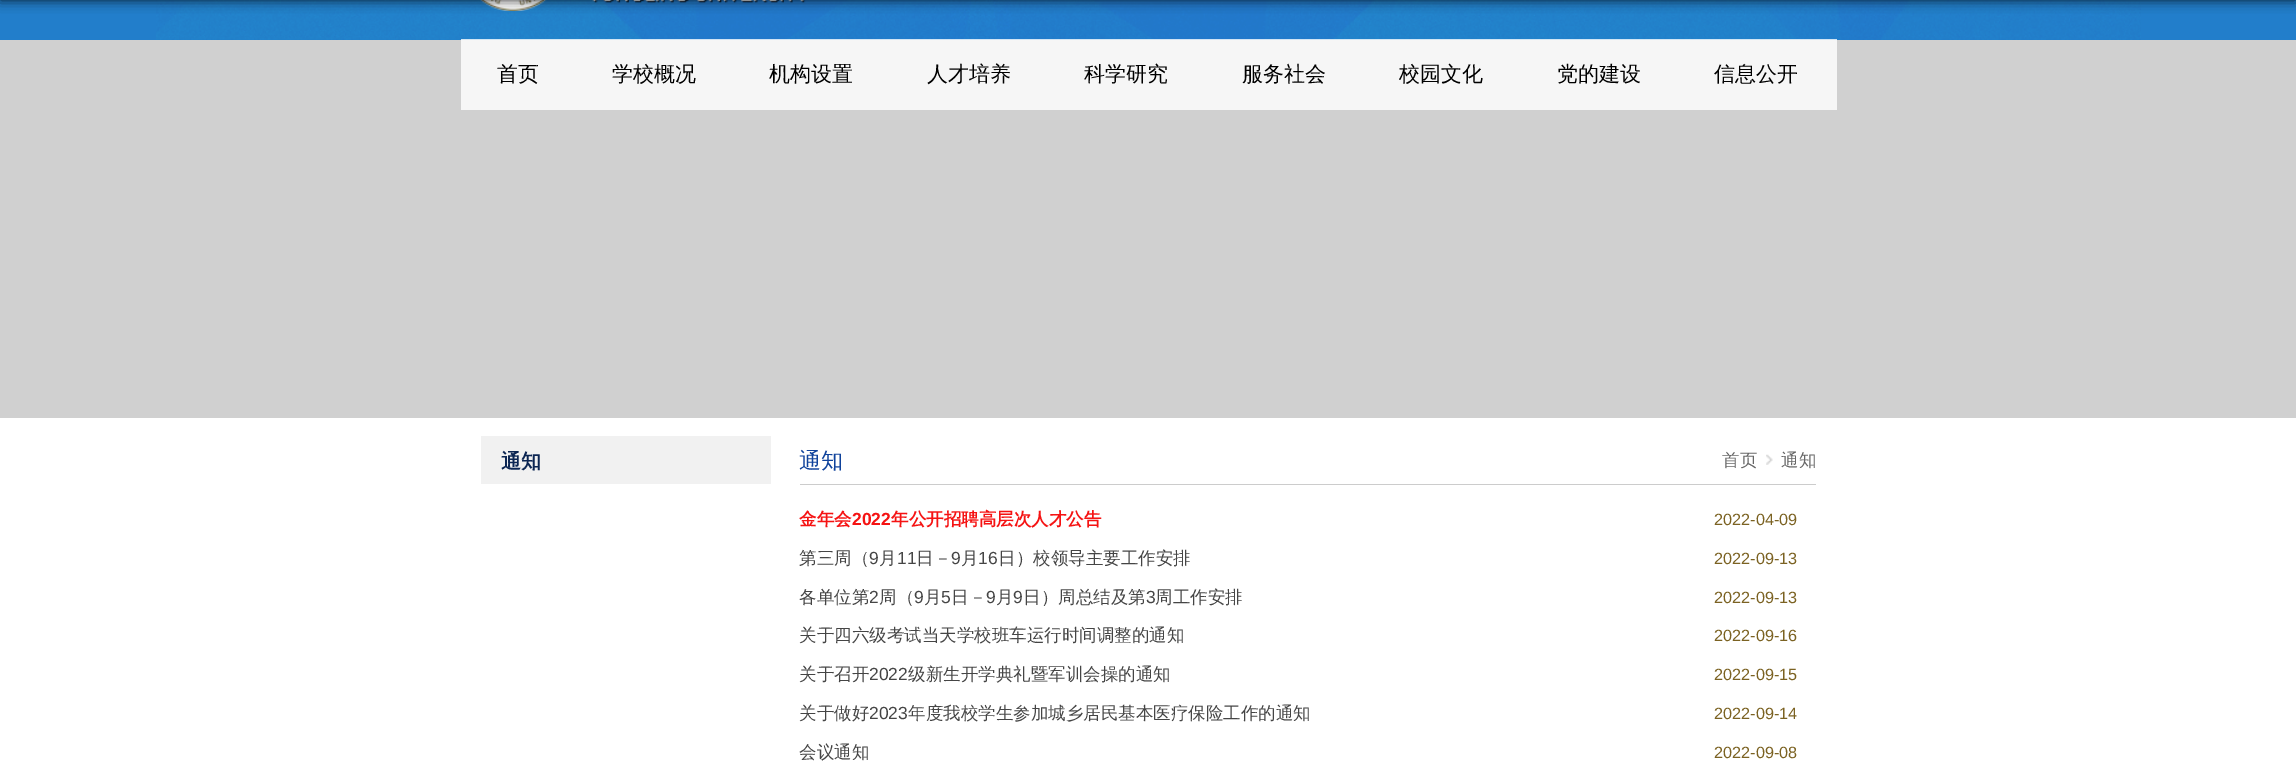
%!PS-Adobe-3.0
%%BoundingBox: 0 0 2296 769
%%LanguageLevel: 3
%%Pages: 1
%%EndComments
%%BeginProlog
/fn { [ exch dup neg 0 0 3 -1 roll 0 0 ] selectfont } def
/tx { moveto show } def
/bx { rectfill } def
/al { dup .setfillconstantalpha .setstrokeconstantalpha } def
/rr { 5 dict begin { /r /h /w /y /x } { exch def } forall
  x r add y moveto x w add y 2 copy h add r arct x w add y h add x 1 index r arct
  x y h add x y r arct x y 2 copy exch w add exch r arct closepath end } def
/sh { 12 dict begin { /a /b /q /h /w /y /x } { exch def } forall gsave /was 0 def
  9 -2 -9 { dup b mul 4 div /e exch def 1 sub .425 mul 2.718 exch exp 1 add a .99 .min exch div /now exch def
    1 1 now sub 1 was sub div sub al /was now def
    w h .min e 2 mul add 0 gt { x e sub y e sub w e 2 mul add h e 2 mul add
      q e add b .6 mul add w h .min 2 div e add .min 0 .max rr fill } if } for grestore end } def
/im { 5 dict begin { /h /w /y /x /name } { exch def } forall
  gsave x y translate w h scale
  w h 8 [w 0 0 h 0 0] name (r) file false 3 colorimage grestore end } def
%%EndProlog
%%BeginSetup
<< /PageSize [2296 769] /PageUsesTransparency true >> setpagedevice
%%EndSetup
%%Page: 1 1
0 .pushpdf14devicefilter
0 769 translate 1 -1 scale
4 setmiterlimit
1 setgray
0 0 2296 769 bx
0.133 0.494 0.796 setrgbcolor
0 0 2296 40 bx
(image0.raw) 156 0 1985 40 im
(image1.raw) 480 0 326 11 im
0 setgray
0 -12 2296 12 0 6 0.8 sh
0.816 setgray
0 40 2296 378 bx
0.8 al
1 setgray
461 39 1376 71 bx
/WenQuanYiZenHei-Medium 21 fn
1 al
0 setgray
(首页) 497 81 tx
(学校概况) 612 81 tx
(机构设置) 769 81 tx
(人才培养) 927 81 tx
(科学研究) 1084 81 tx
(服务社会) 1242 81 tx
(校园文化) 1399 81 tx
(党的建设) 1557 81 tx
(信息公开) 1714 81 tx
0.945 setgray
481 436 290 48 bx
/WenQuanYiZenHei-Bold 20 fn
0.047 0.149 0.325 setrgbcolor
(通知) 501 468 tx
0.8 setgray
800 484 1016 1 bx
/WenQuanYiZenHei-Medium 22 fn
0.059 0.259 0.608 setrgbcolor
(通知) 799 468 tx
/WenQuanYiZenHei-Medium 17.5 fn
0.4 setgray
(首页) 1722 466 tx
(image2.raw) 1766 454 7 11 im
(通知) 1781 466 tx
/WenQuanYiZenHei-Bold 17.5 fn
0.961 0.075 0.075 setrgbcolor
(金年会) 799 525 tx
/LiberationSans-Bold 17.5 fn
(2022) 852 525 tx
/WenQuanYiZenHei-Bold 17.5 fn
(年公开招聘高层次人才公告) 891 525 tx
/LiberationSans-Regular 16.25 fn
0.482 0.384 0.133 setrgbcolor
(2022-04-09) 1714 525 tx
/WenQuanYiZenHei-Medium 17.5 fn
0.271 setgray
(第三周（) 799 564 tx
/LiberationSans-Regular 17.5 fn
(9) 869 564 tx
/WenQuanYiZenHei-Medium 17.5 fn
(月) 879 564 tx
/LiberationSans-Regular 17.5 fn
(11) 897 564 tx
/WenQuanYiZenHei-Medium 17.5 fn
(日－) 916 564 tx
/LiberationSans-Regular 17.5 fn
(9) 951 564 tx
/WenQuanYiZenHei-Medium 17.5 fn
(月) 961 564 tx
/LiberationSans-Regular 17.5 fn
(16) 978 564 tx
/WenQuanYiZenHei-Medium 17.5 fn
(日）校领导主要工作安排) 998 564 tx
/LiberationSans-Regular 16.25 fn
0.482 0.384 0.133 setrgbcolor
(2022-09-13) 1714 564 tx
/WenQuanYiZenHei-Medium 17.5 fn
0.271 setgray
(各单位第) 799 603 tx
/LiberationSans-Regular 17.5 fn
(2) 869 603 tx
/WenQuanYiZenHei-Medium 17.5 fn
(周（) 879 603 tx
/LiberationSans-Regular 17.5 fn
(9) 914 603 tx
/WenQuanYiZenHei-Medium 17.5 fn
(月) 924 603 tx
/LiberationSans-Regular 17.5 fn
(5) 941 603 tx
/WenQuanYiZenHei-Medium 17.5 fn
(日－) 951 603 tx
/LiberationSans-Regular 17.5 fn
(9) 986 603 tx
/WenQuanYiZenHei-Medium 17.5 fn
(月) 996 603 tx
/LiberationSans-Regular 17.5 fn
(9) 1013 603 tx
/WenQuanYiZenHei-Medium 17.5 fn
(日）周总结及第) 1023 603 tx
/LiberationSans-Regular 17.5 fn
(3) 1146 603 tx
/WenQuanYiZenHei-Medium 17.5 fn
(周工作安排) 1155 603 tx
/LiberationSans-Regular 16.25 fn
0.482 0.384 0.133 setrgbcolor
(2022-09-13) 1714 603 tx
/WenQuanYiZenHei-Medium 17.5 fn
0.271 setgray
(关于四六级考试当天学校班车运行时间调整的通知) 799 641 tx
/LiberationSans-Regular 16.25 fn
0.482 0.384 0.133 setrgbcolor
(2022-09-16) 1714 641 tx
/WenQuanYiZenHei-Medium 17.5 fn
0.271 setgray
(关于召开) 799 680 tx
/LiberationSans-Regular 17.5 fn
(2022) 869 680 tx
/WenQuanYiZenHei-Medium 17.5 fn
(级新生开学典礼暨军训会操的通知) 908 680 tx
/LiberationSans-Regular 16.25 fn
0.482 0.384 0.133 setrgbcolor
(2022-09-15) 1714 680 tx
/WenQuanYiZenHei-Medium 17.5 fn
0.271 setgray
(关于做好) 799 719 tx
/LiberationSans-Regular 17.5 fn
(2023) 869 719 tx
/WenQuanYiZenHei-Medium 17.5 fn
(年度我校学生参加城乡居民基本医疗保险工作的通知) 908 719 tx
/LiberationSans-Regular 16.25 fn
0.482 0.384 0.133 setrgbcolor
(2022-09-14) 1714 719 tx
/WenQuanYiZenHei-Medium 17.5 fn
0.271 setgray
(会议通知) 799 758 tx
/LiberationSans-Regular 16.25 fn
0.482 0.384 0.133 setrgbcolor
(2022-09-08) 1714 758 tx
.poppdf14devicefilter showpage
%%EOF
